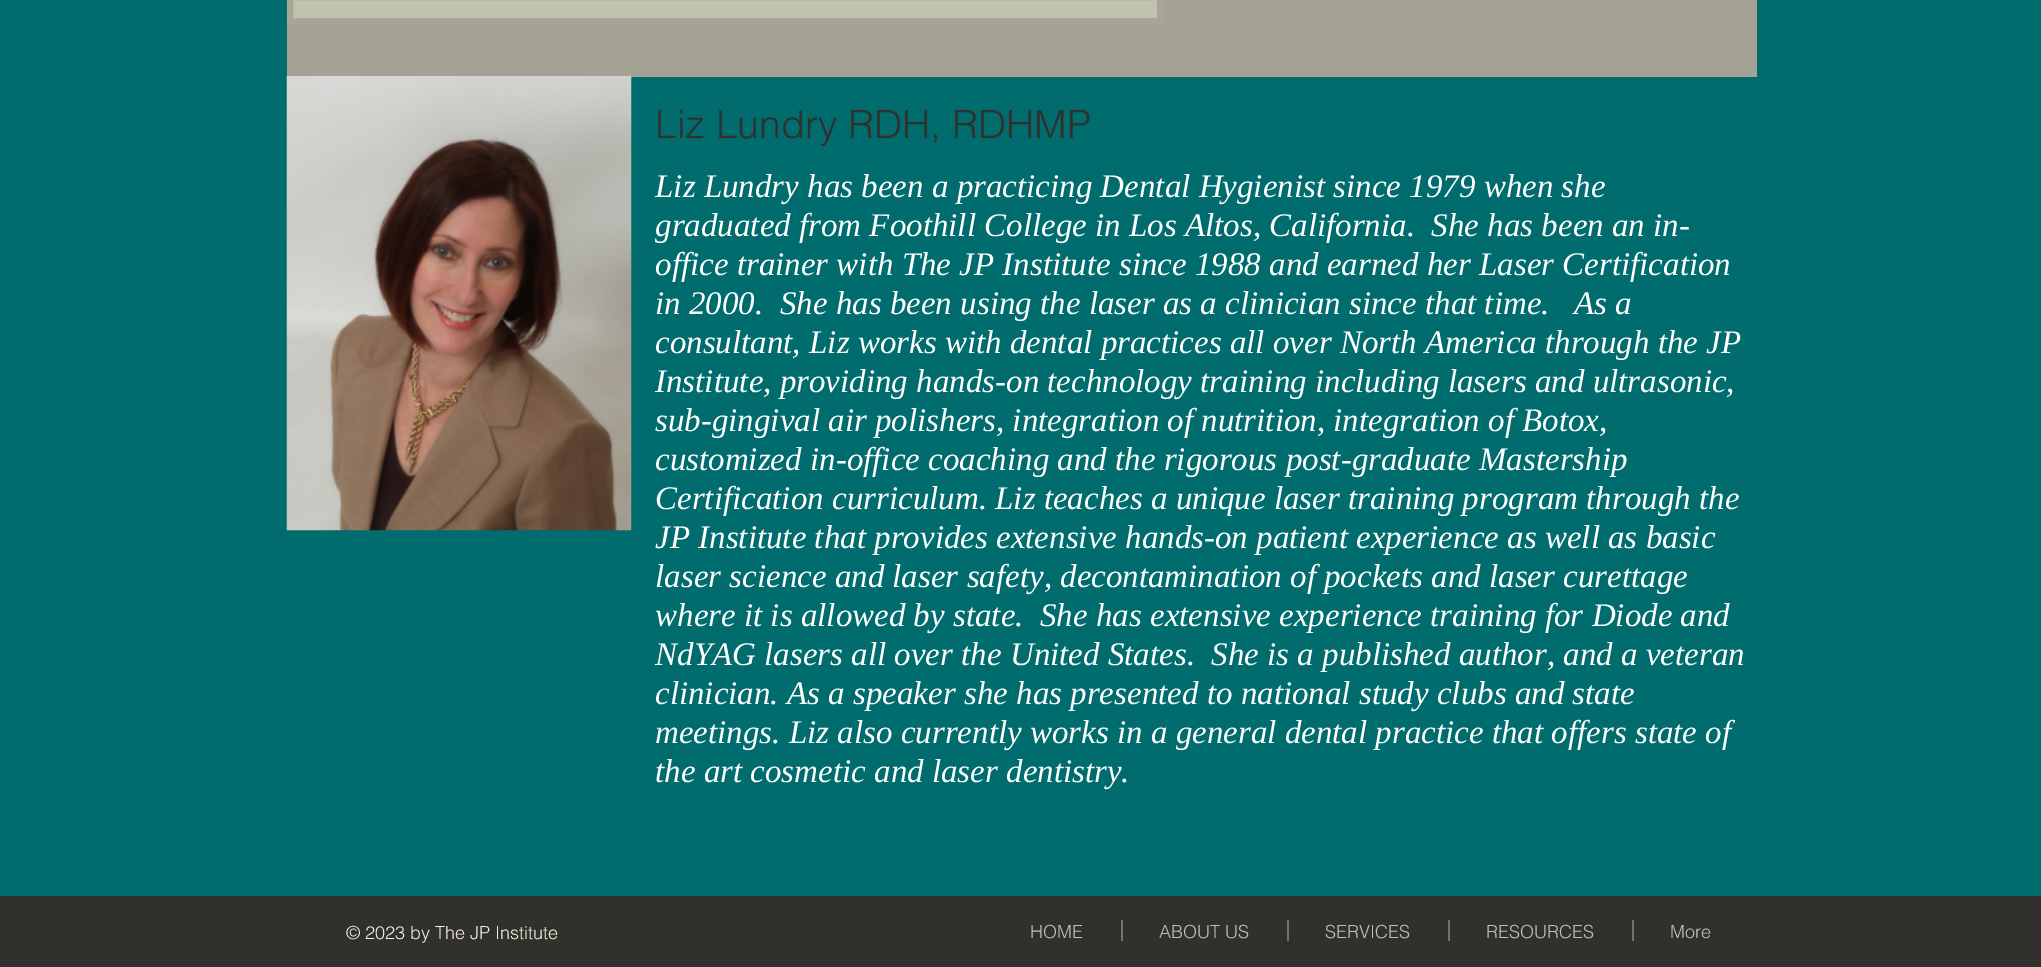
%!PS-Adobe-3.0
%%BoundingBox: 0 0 2041 967
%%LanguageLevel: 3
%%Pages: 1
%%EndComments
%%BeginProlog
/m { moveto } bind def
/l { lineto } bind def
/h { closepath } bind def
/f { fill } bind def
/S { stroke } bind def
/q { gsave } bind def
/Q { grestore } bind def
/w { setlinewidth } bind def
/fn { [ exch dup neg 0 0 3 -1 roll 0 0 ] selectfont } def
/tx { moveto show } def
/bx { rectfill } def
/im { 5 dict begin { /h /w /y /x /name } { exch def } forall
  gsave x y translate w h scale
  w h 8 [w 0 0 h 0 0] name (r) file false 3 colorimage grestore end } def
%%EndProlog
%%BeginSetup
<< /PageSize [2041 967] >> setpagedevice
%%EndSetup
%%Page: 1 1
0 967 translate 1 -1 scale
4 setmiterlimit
0 0.424 0.427 setrgbcolor
0 0 2041 967 bx
0.639 0.635 0.58 setrgbcolor
287 0 1470 77 bx
0.761 0.761 0.69 setrgbcolor
290 -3 m 1160 -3 l 1160 21 l 290 21 l h q f Q
0.655 0.655 0.592 setrgbcolor
6 w
S
(image0.raw) 286 76 346 455 im
/helvetica-Light 39 fn
0.192 0.188 0.173 setrgbcolor
(Liz Lundry RDH, RDHMP) 655 138 tx
/LiberationSerif-Italic 33 fn
1 setgray
(Liz Lundry has been a practicing Dental Hygienist since 1979 when she) 655 197 tx
(graduated from Foothill College in Los Altos, California.  She has been an in-) 655 236 tx
(office trainer with The JP Institute since 1988 and earned her Laser Certification) 655 275 tx
(in 2000.  She has been using the laser as a clinician since that time.   As a) 655 314 tx
(consultant, Liz works with dental practices all over North America through the JP) 655 353 tx
(Institute, providing hands-on technology training including lasers and ultrasonic,) 655 392 tx
(sub-gingival air polishers, integration of nutrition, integration of Botox,) 655 431 tx
(customized in-office coaching and the rigorous post-graduate Mastership) 655 470 tx
(Certification curriculum. Liz teaches a unique laser training program through the) 655 509 tx
(JP Institute that provides extensive hands-on patient experience as well as basic) 655 548 tx
(laser science and laser safety, decontamination of pockets and laser curettage) 655 587 tx
(where it is allowed by state.  She has extensive experience training for Diode and) 655 626 tx
(NdYAG lasers all over the United States.  She is a published author, and a veteran) 655 665 tx
(clinician. As a speaker she has presented to national study clubs and state) 655 704 tx
(meetings. Liz also currently works in a general dental practice that offers state of) 655 743 tx
(the art cosmetic and laser dentistry.) 655 782 tx
0.192 0.188 0.173 setrgbcolor
0 896 2041 71 bx
/helvetica-Light 18 fn
0.953 0.949 0.863 setrgbcolor
(© 2023 by The JP Institute) 346 939 tx
0.761 0.761 0.69 setrgbcolor
(HOME) 1030 938 tx
0.459 0.455 0.416 setrgbcolor
1121 920 2 21 bx
0.761 0.761 0.69 setrgbcolor
(ABOUT US) 1159 938 tx
0.459 0.455 0.416 setrgbcolor
1287 920 2 21 bx
0.761 0.761 0.69 setrgbcolor
(SERVICES) 1325 938 tx
0.459 0.455 0.416 setrgbcolor
1448 920 2 21 bx
0.761 0.761 0.69 setrgbcolor
(RESOURCES) 1486 938 tx
0.459 0.455 0.416 setrgbcolor
1632 920 2 21 bx
0.761 0.761 0.69 setrgbcolor
(More) 1670 938 tx
showpage
%%EOF
